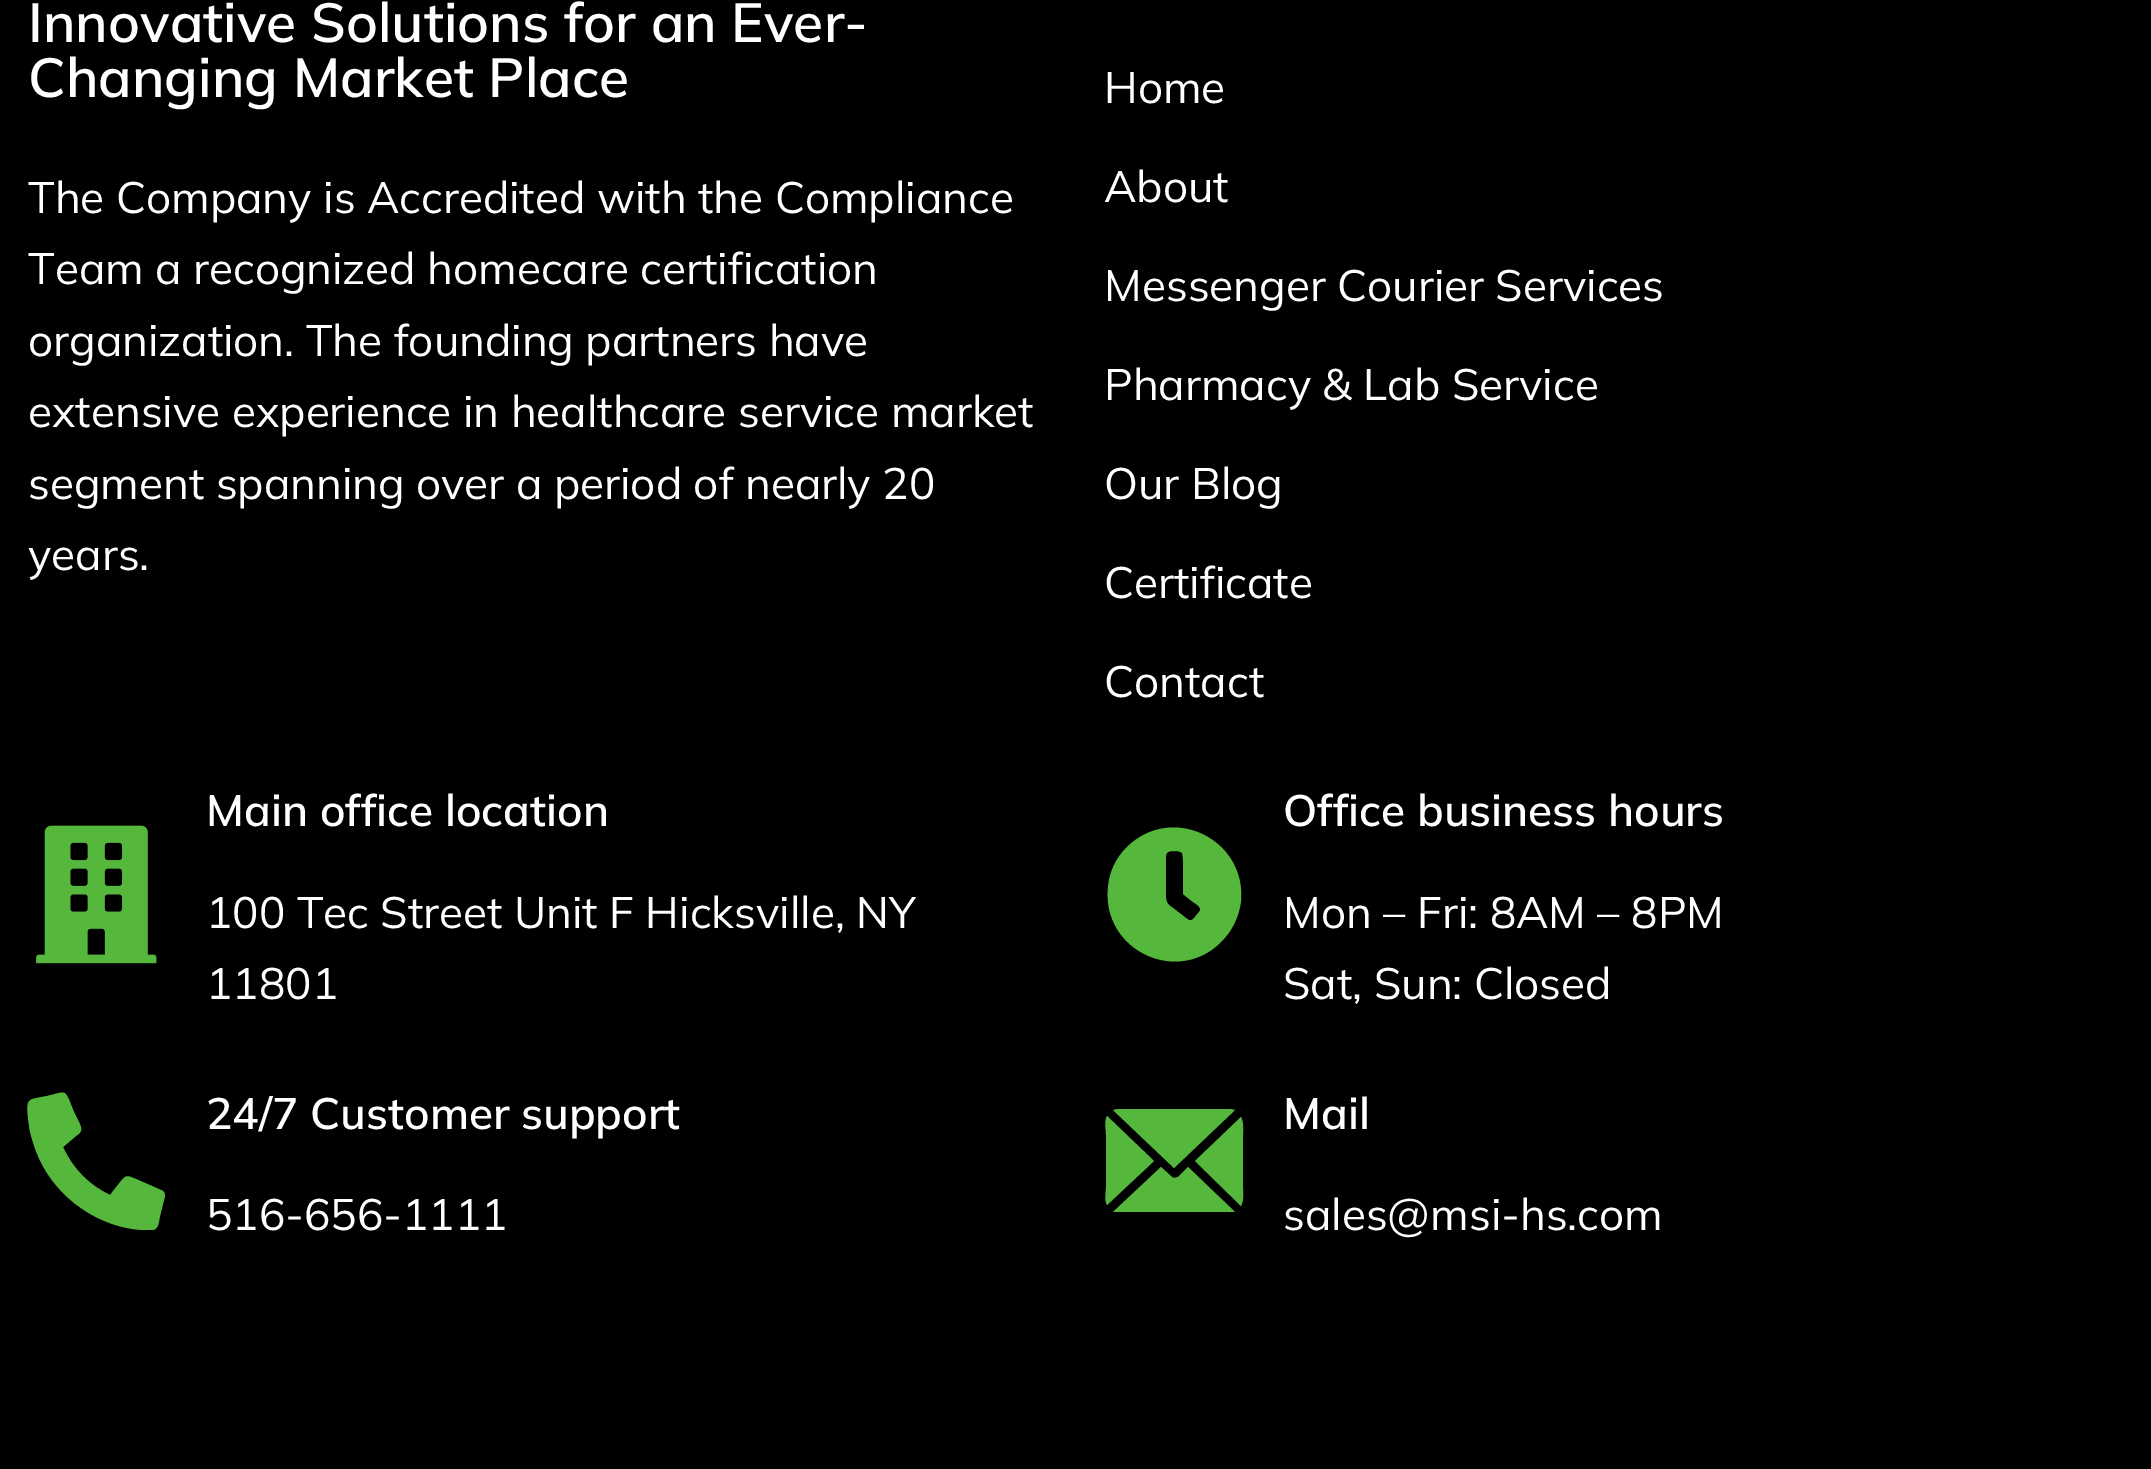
%!PS-Adobe-3.0
%%BoundingBox: 0 0 2151 1469
%%LanguageLevel: 3
%%Pages: 1
%%EndComments
%%BeginProlog
/m { moveto } bind def
/l { lineto } bind def
/c { curveto } bind def
/h { closepath } bind def
/f { fill } bind def
/fn { [ exch dup neg 0 0 3 -1 roll 0 0 ] selectfont } def
/tx { moveto show } def
/bx { rectfill } def
/im { 5 dict begin { /h /w /y /x /name } { exch def } forall
  gsave x y translate w h scale
  w h 8 [w 0 0 h 0 0] name (r) file false 3 colorimage grestore end } def
%%EndProlog
%%BeginSetup
<< /PageSize [2151 1469] >> setpagedevice
%%EndSetup
%%Page: 1 1
0 1469 translate 1 -1 scale
4 setmiterlimit
0 setgray
0 0 2151 1469 bx
/Mulish-SemiBold 55 fn
1 setgray
(Innovative Solutions for an Ever-) 28 42 tx
(Changing Market Place) 28 97 tx
/Mulish-Regular 44 fn
(The Company is Accredited with the Compliance) 28 213 tx
(Team a recognized homecare certification) 28 284 tx
(organization. The founding partners have) 28 356 tx
(extensive experience in healthcare service market) 28 427 tx
(segment spanning over a period of nearly 20) 28 499 tx
(years.) 28 570 tx
(Home) 1104 103 tx
(About) 1104 202 tx
(Messenger Courier Services) 1104 301 tx
(Pharmacy & Lab Service) 1104 400 tx
(Our Blog) 1104 499 tx
(Certificate) 1104 598 tx
(Contact) 1104 697 tx
(image0.raw) 36 825 121 139 im
/Mulish-SemiBold 44 fn
(Main office location) 206 826 tx
/Mulish-Regular 44 fn
(100 Tec Street Unit F Hicksville, NY) 206 928 tx
(11801) 206 999 tx
0.333 0.718 0.235 setrgbcolor
161 1190 m 164 1191 165 1193 165 1196 c 160 1216 l 159 1220 159 1230 152 1230 c 142 1230 137 1230 127 1228 c 83 1219 45 1185 33 1142 c 30 1134 29 1126 28 1118 c 26 1097 28 1100 47 1096 c 68 1091 64 1088 74 1112 c 79 1122 l 82 1129 83 1131 76 1136 c 63 1147 l 73 1169 89 1185 110 1195 c 121 1181 l 127 1174 128 1176 136 1179 c h f
/Mulish-SemiBold 44 fn
1 setgray
(24/7 Customer support) 206 1129 tx
/Mulish-Regular 44 fn
(516-656-1111) 206 1230 tx
0.333 0.718 0.235 setrgbcolor
1127 847 m 1172 803 1246 839 1241 901 c 1239 917 1232 931 1221 942 c 1177 986 1102 950 1108 888 c 1109 872 1116 858 1127 847 c h 1199 912 m 1203 908 1196 904 1193 902 c 1183 894 l 1183 889 1184 856 1182 853 c 1180 851 1177 851 1174 851 c 1171 851 1166 851 1166 856 c 1166 891 l 1166 900 1165 903 1173 908 c 1182 915 l 1192 923 1191 922 1199 912 c h f
/Mulish-SemiBold 44 fn
1 setgray
(Office business hours) 1283 826 tx
/Mulish-Regular 44 fn
(Mon – Fri: 8AM – 8PM) 1283 928 tx
(Sat, Sun: Closed) 1283 999 tx
0.333 0.718 0.235 setrgbcolor
1235 1110 m 1230 1109 l 1118 1109 l 1113 1110 l 1174 1168 l h 1241 1206 m 1244 1199 1243 1196 1243 1187 c 1243 1136 l 1243 1130 1244 1123 1241 1117 c 1195 1161 l h 1107 1116 m 1104 1122 1106 1128 1106 1135 c 1106 1187 l 1106 1194 1104 1199 1107 1205 c 1154 1161 l h 1178 1177 m 1174 1178 l 1172 1177 l 1161 1167 l 1113 1212 l 1118 1212 l 1137 1212 l 1230 1212 l 1235 1212 l 1188 1167 l h f
/Mulish-SemiBold 44 fn
1 setgray
(Mail) 1283 1129 tx
/Mulish-Regular 44 fn
(sales@msi-hs.com) 1283 1230 tx
showpage
%%EOF
